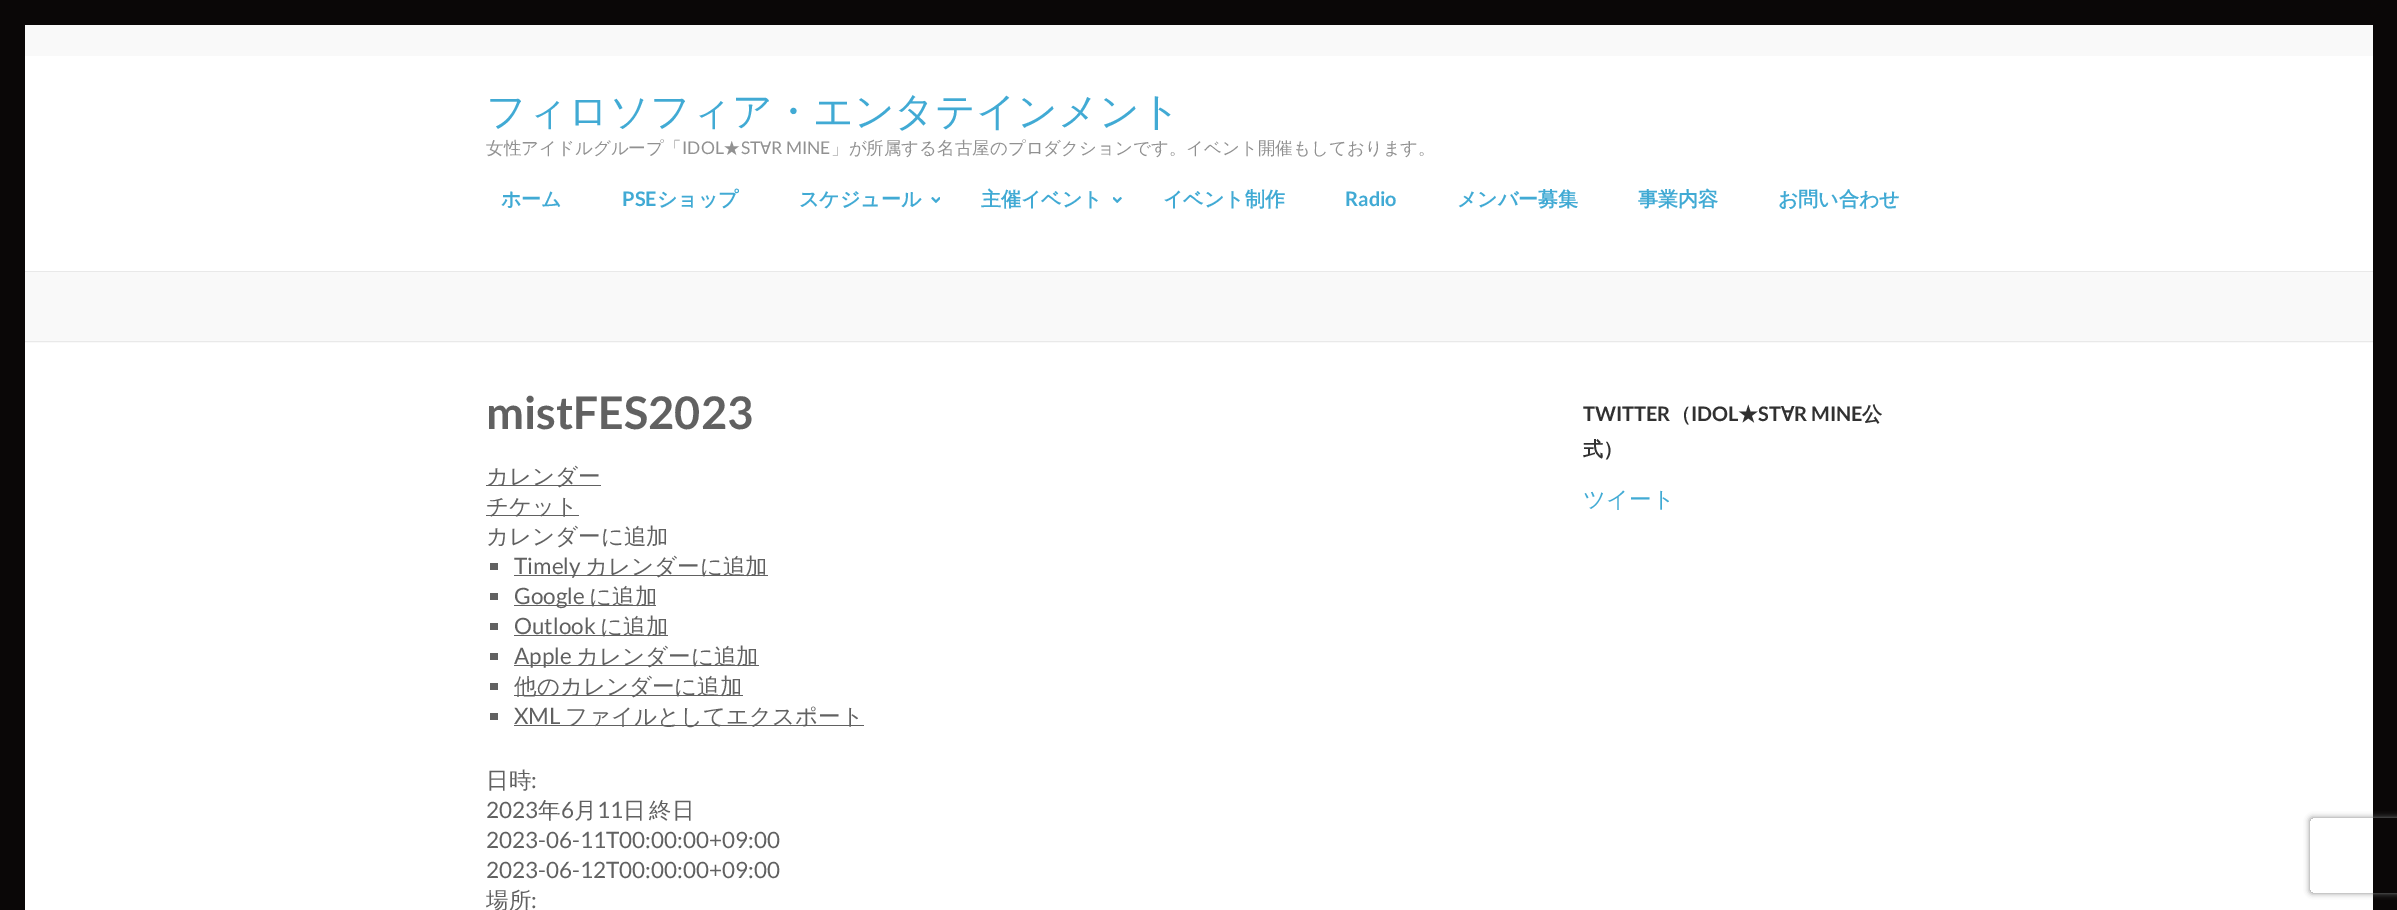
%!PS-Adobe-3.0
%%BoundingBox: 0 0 2397 910
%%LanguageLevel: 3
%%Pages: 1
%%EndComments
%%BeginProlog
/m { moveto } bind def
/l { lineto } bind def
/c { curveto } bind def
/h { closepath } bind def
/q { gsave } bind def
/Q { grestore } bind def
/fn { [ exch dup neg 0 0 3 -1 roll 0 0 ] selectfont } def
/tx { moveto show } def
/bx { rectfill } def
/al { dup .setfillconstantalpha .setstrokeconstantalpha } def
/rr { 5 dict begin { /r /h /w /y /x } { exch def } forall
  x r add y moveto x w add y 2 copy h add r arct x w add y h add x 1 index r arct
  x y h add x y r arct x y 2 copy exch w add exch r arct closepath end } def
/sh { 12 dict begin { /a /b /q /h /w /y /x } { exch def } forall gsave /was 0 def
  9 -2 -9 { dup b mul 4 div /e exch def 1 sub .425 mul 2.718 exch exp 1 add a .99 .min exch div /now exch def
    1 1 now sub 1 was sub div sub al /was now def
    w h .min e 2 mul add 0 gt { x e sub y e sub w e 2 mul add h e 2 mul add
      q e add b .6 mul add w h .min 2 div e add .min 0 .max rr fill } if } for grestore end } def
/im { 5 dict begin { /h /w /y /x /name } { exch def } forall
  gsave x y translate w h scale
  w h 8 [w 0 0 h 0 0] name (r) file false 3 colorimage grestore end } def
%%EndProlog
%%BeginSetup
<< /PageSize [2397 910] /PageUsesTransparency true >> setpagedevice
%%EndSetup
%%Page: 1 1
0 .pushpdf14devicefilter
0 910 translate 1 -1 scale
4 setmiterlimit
0.039 0.027 0.027 setrgbcolor
0 0 2397 910 bx
1 setgray
25 56 2348 854 bx
0.976 setgray
25 25 2348 31 bx
/WenQuanYiZenHei-Medium 40 fn
0.255 0.667 0.831 setrgbcolor
(フィロソフィア・エンタテインメント) 486 125 tx
/WenQuanYiZenHei-Medium 17.5 fn
0.569 setgray
(女性アイドルグループ「) 486 154 tx
/Lato-Regular 17.5 fn
(IDOL) 682 154 tx
/WenQuanYiZenHei-Medium 17.5 fn
(★) 723 154 tx
/Lato-Regular 17.5 fn
(ST) 741 154 tx
/WenQuanYiZenHei-Medium 17.5 fn
(∀) 760 154 tx
/Lato-Regular 17.5 fn
(R MINE) 771 154 tx
/WenQuanYiZenHei-Medium 17.5 fn
(」が所属する名古屋のプロダクションです。イベント開催もしております。) 831 154 tx
/WenQuanYiZenHei-Bold 20 fn
0.255 0.667 0.831 setrgbcolor
(ホーム) 501 206 tx
/Lato-Bold 20 fn
(PSE) 622 206 tx
/WenQuanYiZenHei-Bold 20 fn
(ショップ) 657 206 tx
(スケジュール) 799 206 tx
(image0.raw) 931 197 9 6 im
(主催イベント) 981 206 tx
(image1.raw) 1113 197 9 6 im
(イベント制作) 1163 206 tx
/Lato-Bold 20 fn
(Radio) 1345 206 tx
/WenQuanYiZenHei-Bold 20 fn
(メンバー募集) 1457 206 tx
(事業内容) 1638 206 tx
(お問い合わせ) 1778 206 tx
0.976 setgray
25 272 2348 71 bx
0.914 setgray
25 271 2348 1 bx
25 341 2348 1 bx
/Lato-Bold 45 fn
0.38 setgray
(mistFES2023) 486 429 tx
486 485 115 1 bx
/WenQuanYiZenHei-Medium 22.5 fn
(カレンダー) 486 484 tx
486 515 93 1 bx
(チケット) 486 514 tx
(カレンダーに追加) 486 544 tx
490 563 8 7 bx
514 575 254 1 bx
/Lato-Regular 22.5 fn
(Timely) 514 574 tx
/WenQuanYiZenHei-Medium 22.5 fn
(カレンダーに追加) 585 574 tx
490 593 8 7 bx
514 605 142 1 bx
/Lato-Regular 22.5 fn
(Google) 514 604 tx
/WenQuanYiZenHei-Medium 22.5 fn
(に追加) 589 604 tx
490 623 8 7 bx
/Lato-Regular 22.5 fn
(Outlook) 514 634 tx
514 635 154 1 bx
/WenQuanYiZenHei-Medium 22.5 fn
(に追加) 600 634 tx
490 653 8 7 bx
514 665 245 1 bx
/Lato-Regular 22.5 fn
(Apple) 514 664 tx
/WenQuanYiZenHei-Medium 22.5 fn
(カレンダーに追加) 576 664 tx
490 683 8 7 bx
514 695 229 1 bx
(他のカレンダーに追加) 514 694 tx
490 713 8 7 bx
/Lato-Regular 22.5 fn
(XML) 514 724 tx
514 725 350 1 bx
/WenQuanYiZenHei-Medium 22.5 fn
(ファイルとしてエクスポート) 565 724 tx
(日時) 486 788 tx
/Lato-Regular 22.5 fn
(:) 531 788 tx
(2023) 486 818 tx
/WenQuanYiZenHei-Medium 22.5 fn
(年) 538 818 tx
/Lato-Regular 22.5 fn
(6) 561 818 tx
/WenQuanYiZenHei-Medium 22.5 fn
(月) 574 818 tx
/Lato-Regular 22.5 fn
(11) 597 818 tx
/WenQuanYiZenHei-Medium 22.5 fn
(日) 623 818 tx
(終日) 649 818 tx
/Lato-Regular 22.5 fn
(2023-06-11T00:00:00+09:00) 486 848 tx
(2023-06-12T00:00:00+09:00) 486 878 tx
/WenQuanYiZenHei-Medium 22.5 fn
(場所) 486 908 tx
/Lato-Regular 22.5 fn
(:) 531 908 tx
/Lato-Bold 20 fn
0.192 setgray
(TWITTER) 1583 421 tx
/WenQuanYiZenHei-Bold 20 fn
(（) 1671 421 tx
/Lato-Bold 20 fn
(IDOL) 1691 421 tx
/WenQuanYiZenHei-Bold 20 fn
(★) 1738 421 tx
/Lato-Bold 20 fn
(ST) 1758 421 tx
/WenQuanYiZenHei-Bold 20 fn
(∀) 1781 421 tx
/Lato-Bold 20 fn
(R MINE) 1794 421 tx
/WenQuanYiZenHei-Bold 20 fn
(公) 1862 421 tx
(式）) 1583 456 tx
/WenQuanYiZenHei-Medium 22.5 fn
0.255 0.667 0.831 setrgbcolor
(ツイート) 1583 507 tx
q
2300 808 m 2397 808 l 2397 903 l 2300 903 l h 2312.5 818 m 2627.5 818 l 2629 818 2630 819 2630 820.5 c 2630 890.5 l 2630 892 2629 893 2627.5 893 c 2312.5 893 l 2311 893 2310 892 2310 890.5 c 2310 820.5 l 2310 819 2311 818 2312.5 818 c h eoclip newpath
0.502 setgray
2310 818 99 75 2.5 3 1 sh
Q
.poppdf14devicefilter showpage
%%EOF
